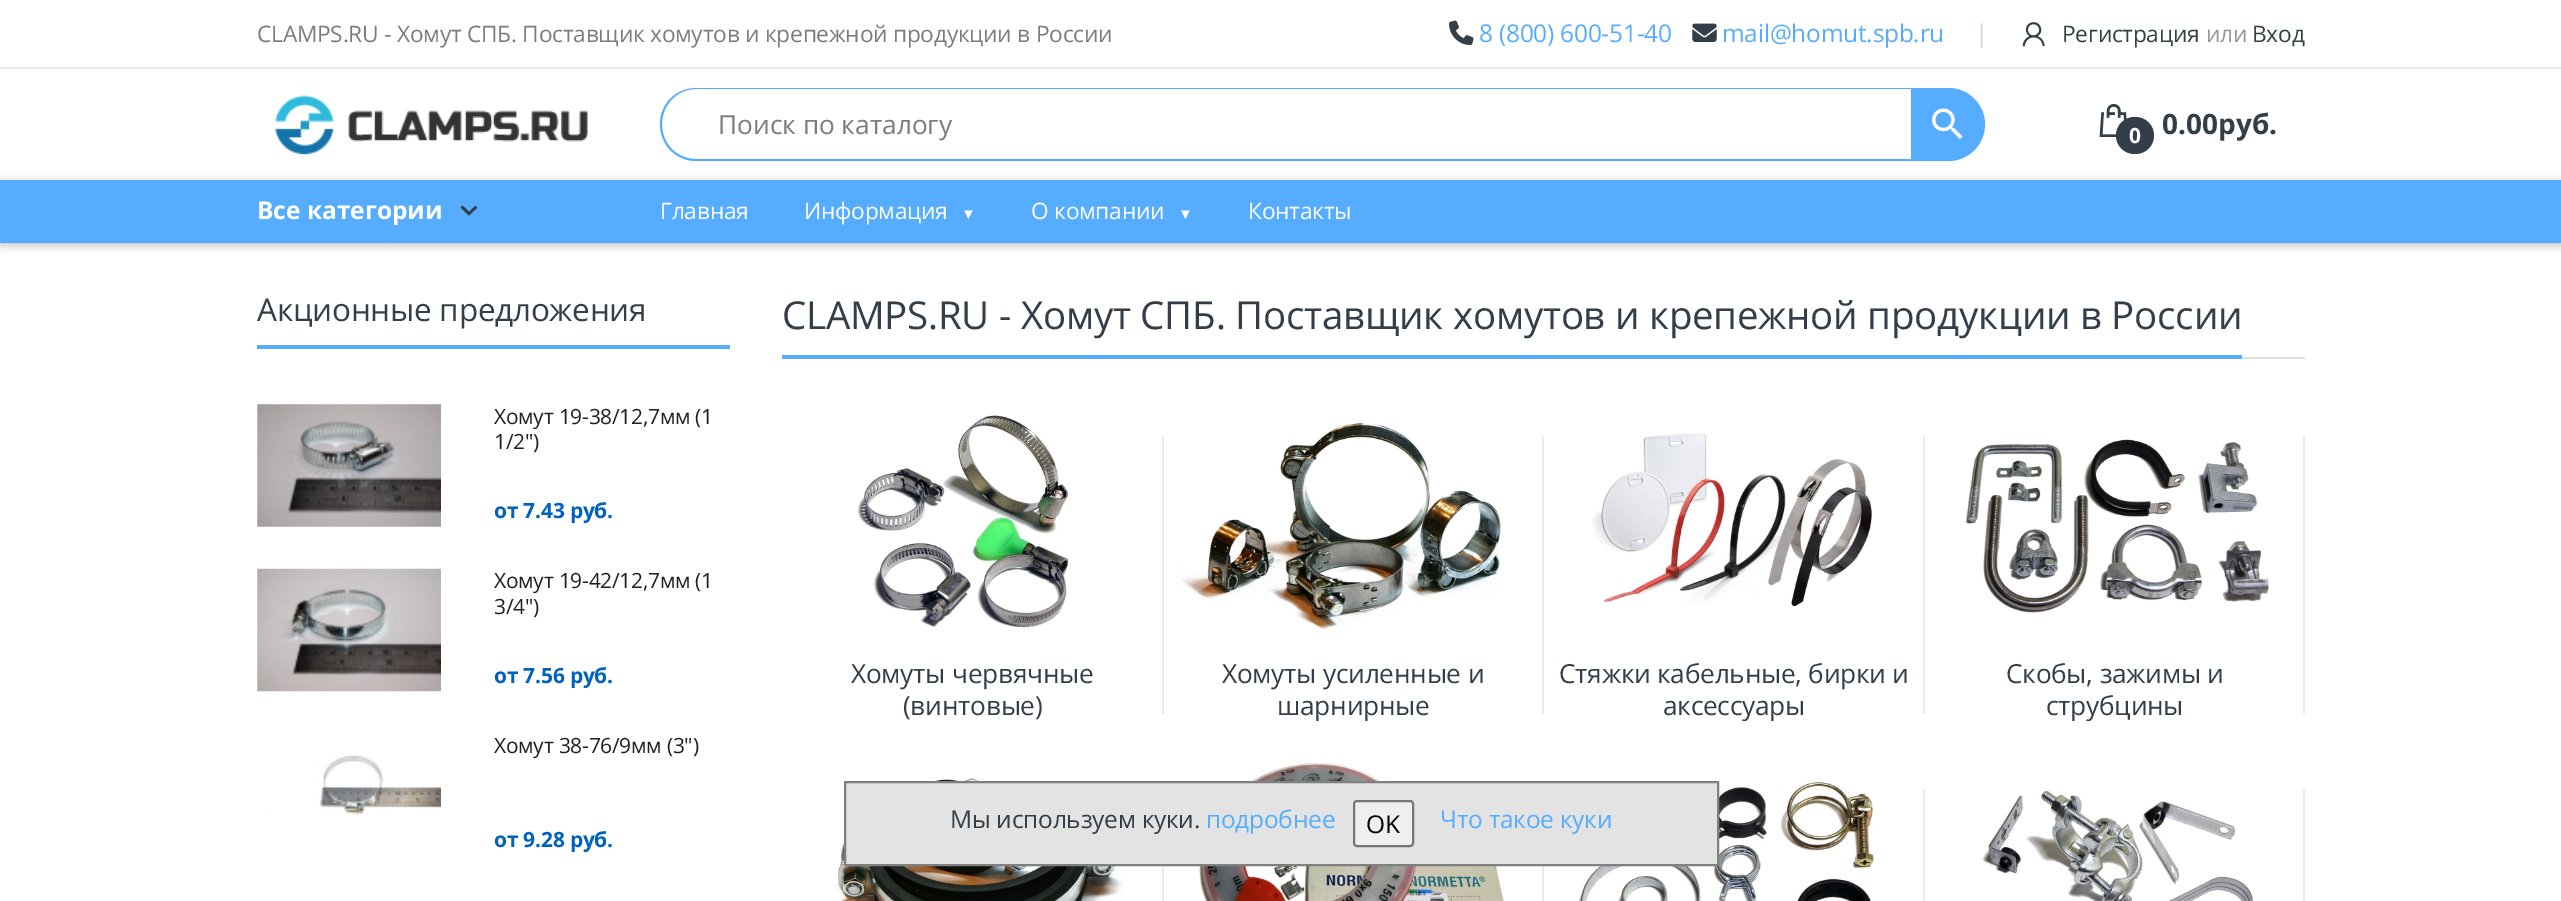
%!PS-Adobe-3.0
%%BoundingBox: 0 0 2561 901
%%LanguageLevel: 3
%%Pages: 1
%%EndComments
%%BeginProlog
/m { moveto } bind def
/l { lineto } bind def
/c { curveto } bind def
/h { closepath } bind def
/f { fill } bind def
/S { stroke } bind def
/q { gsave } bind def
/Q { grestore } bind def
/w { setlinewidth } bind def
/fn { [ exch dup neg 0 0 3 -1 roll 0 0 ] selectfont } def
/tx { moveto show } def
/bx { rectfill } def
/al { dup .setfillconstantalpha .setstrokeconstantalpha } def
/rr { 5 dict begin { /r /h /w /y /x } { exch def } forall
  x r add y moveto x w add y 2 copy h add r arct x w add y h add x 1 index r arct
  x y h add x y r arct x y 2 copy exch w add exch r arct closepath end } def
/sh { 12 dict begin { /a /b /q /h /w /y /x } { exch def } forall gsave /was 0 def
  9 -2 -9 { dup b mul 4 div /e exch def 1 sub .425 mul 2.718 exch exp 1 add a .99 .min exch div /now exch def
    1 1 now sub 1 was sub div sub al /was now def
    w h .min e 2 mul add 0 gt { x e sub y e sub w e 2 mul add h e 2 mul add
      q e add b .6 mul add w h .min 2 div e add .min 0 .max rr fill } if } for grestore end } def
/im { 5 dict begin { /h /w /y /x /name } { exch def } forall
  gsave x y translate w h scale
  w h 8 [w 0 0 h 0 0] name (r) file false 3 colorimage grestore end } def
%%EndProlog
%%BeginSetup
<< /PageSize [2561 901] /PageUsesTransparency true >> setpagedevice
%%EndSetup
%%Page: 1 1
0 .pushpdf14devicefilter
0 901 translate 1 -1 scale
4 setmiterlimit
1 setgray
0 0 2561 901 bx
0.91 setgray
0 67 2561 2 bx
/OpenSans-Regular 22.75 fn
0.486 setgray
257 42 m -0.25 0 (CLAMPS.RU - Хомут СПБ. Поставщик хомутов и крепежной продукции в России) ashow
(image0.raw) 1449 20 25 26 im
/OpenSans-Regular 24.5 fn
0.337 0.678 1 setrgbcolor
1479 42 m -0.25 0 (8 \(800\) 600-51-40) ashow
(image1.raw) 1692 23 25 19 im
1722 42 m -0.25 0 (mail@homut.spb.ru) ashow
0.792 0.835 0.835 setrgbcolor
1975 42 m -0.25 0 (|) ashow
(image2.raw) 2022 22 23 25 im
/OpenSans-Regular 22.75 fn
0.2 0.255 0.255 setrgbcolor
2062 42 m -0.25 0 (Регистрация) ashow
0.584 setgray
2206 42 m -0.25 0 (или) ashow
0.2 0.255 0.255 setrgbcolor
2252 42 m -0.25 0 (Вход) ashow
(image3.raw) 275 95 313 60 im
0.337 0.678 1 setrgbcolor
696 88 m 1913 88 l 1913 161 l 696 161 l 676 161 660 145 660 124 c 660 104 676 88 696 88 c h 696 89 m 1913 89 l 1913 159 l 696 159 l 677 159 662 144 662 124 c 662 105 677 89 696 89 c h eofill
/OpenSans-Regular 26.25 fn
0.486 setgray
(Поиск по каталогу) 718 134 tx
0.337 0.678 1 setrgbcolor
1911 88 m 1948.5 88 l 1968.5 88 1985 104.5 1985 124.5 c 1985 144.5 1968.5 161 1948.5 161 c 1911 161 l h f
(image4.raw) 1932 108 31 31 im
(image5.raw) 2099 103 28 34 im
0.2 0.243 0.282 setrgbcolor
2116 117 38 37 18.5 rr f
/OpenSans-Bold 21 fn
1 setgray
(0) 2129 143 tx
/OpenSans-Bold 28 fn
0.2 0.243 0.282 setrgbcolor
(0.00руб.) 2162 134 tx
0 setgray
0 182 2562 63 0 4.5 0.26 sh
0.337 0.678 1 setrgbcolor
0 180 2561 63 bx
/OpenSans-Bold 24.5 fn
1 setgray
(Все категории) 257 219 tx
(image6.raw) 460 205 18 11 im
/OpenSans-Regular 22.75 fn
660 219 m -0.25 0 (Главная) ashow
804 219 m -0.25 0 (Информация) ashow
/LiberationSans-Bold 15 fn
961 219 m -0.25 0 (▼) ashow
/OpenSans-Regular 22.75 fn
1031 219 m -0.25 0 (О компании) ashow
/LiberationSans-Bold 15 fn
1178 219 m -0.25 0 (▼) ashow
/OpenSans-Regular 22.75 fn
1248 219 m -0.25 0 (Контакты) ashow
/OpenSans-Regular 31.5 fn
0.2 0.243 0.282 setrgbcolor
257 321 m -0.25 0 (Акционные предложения) ashow
0.337 0.678 1 setrgbcolor
257 345 473 4 bx
(image7.raw) 257 404 184 123 im
/OpenSans-Regular 21 fn
0.118 0.125 0.133 setrgbcolor
494 424 m -0.25 0 (Хомут 19-38/12,7мм \(1) ashow
494 449 m -0.25 0 (1/2"\)) ashow
/OpenSans-Bold 21 fn
0 0.384 0.741 setrgbcolor
494 518 m -0.25 0 (от 7.43 руб.) ashow
(image8.raw) 257 568 184 124 im
/OpenSans-Regular 21 fn
0.118 0.125 0.133 setrgbcolor
494 588 m -0.25 0 (Хомут 19-42/12,7мм \(1) ashow
494 614 m -0.25 0 (3/4"\)) ashow
/OpenSans-Bold 21 fn
0 0.384 0.741 setrgbcolor
494 683 m -0.25 0 (от 7.56 руб.) ashow
(image9.raw) 266 754 175 61 im
/OpenSans-Regular 21 fn
0.118 0.125 0.133 setrgbcolor
494 753 m -0.25 0 (Хомут 38-76/9мм \(3"\)) ashow
/OpenSans-Bold 21 fn
0 0.384 0.741 setrgbcolor
494 847 m -0.25 0 (от 9.28 руб.) ashow
0.867 setgray
2242 357 63 2 bx
/OpenSans-Regular 38.5 fn
0.2 0.243 0.282 setrgbcolor
782 329 m -0.25 0 (CLAMPS.RU - Хомут СПБ. Поставщик хомутов и крепежной продукции в России) ashow
0.337 0.678 1 setrgbcolor
782 355 1460 4 bx
(image10.raw) 857 415 212 213 im
/OpenSans-Regular 26.25 fn
0.2 0.243 0.282 setrgbcolor
851 683 m -0.25 0 (Хомуты червячные) ashow
903 715 m -0.25 0 (\(винтовые\)) ashow
0.918 setgray
1162 436 2 278 bx
(image11.raw) 1180 422 321 208 im
0.2 0.243 0.282 setrgbcolor
1222 683 m -0.25 0 (Хомуты усиленные и) ashow
q
1178 658 352 63 rectclip
1277 715 m -0.25 0 (шарнирные) ashow
Q
0.918 setgray
1542 436 2 278 bx
(image12.raw) 1592 432 280 175 im
0.2 0.243 0.282 setrgbcolor
1559 683 m -0.25 0 (Стяжки кабельные, бирки и) ashow
q
1558 658 353 63 rectclip
1663 715 m -0.25 0 (аксессуары) ashow
Q
0.918 setgray
1923 436 2 278 bx
(image13.raw) 1965 439 304 174 im
0.2 0.243 0.282 setrgbcolor
2006 683 m -0.25 0 (Скобы, зажимы и) ashow
q
1939 658 352 63 rectclip
2046 715 m -0.25 0 (струбцины) ashow
Q
0.918 setgray
2303 436 2 278 bx
(image14.raw) 835 778 289 123 im
1162 866 2 35 bx
(image15.raw) 1199 762 305 139 im
1542 866 2 35 bx
(image16.raw) 1578 782 297 119 im
1923 789 2 112 bx
(image17.raw) 1982 790 272 111 im
2303 789 2 112 bx
0.89 setgray
845 782 m 1718 782 l 1718 865 l 845 865 l h q f Q
0.502 setgray
2 w
S
/OpenSans-Regular 24.5 fn
0.2 0.243 0.282 setrgbcolor
950 828 m -0.25 0 (Мы используем куки.) ashow
0.337 0.678 1 setrgbcolor
1206 828 m -0.25 0 (подробнее) ashow
0.937 setgray
1354 801 59 45 3 rr q f Q
0.463 setgray
S
0 setgray
(OK) 1366 833 tx
0.337 0.678 1 setrgbcolor
1440 828 m -0.25 0 (Что такое куки) ashow
.poppdf14devicefilter showpage
%%EOF
